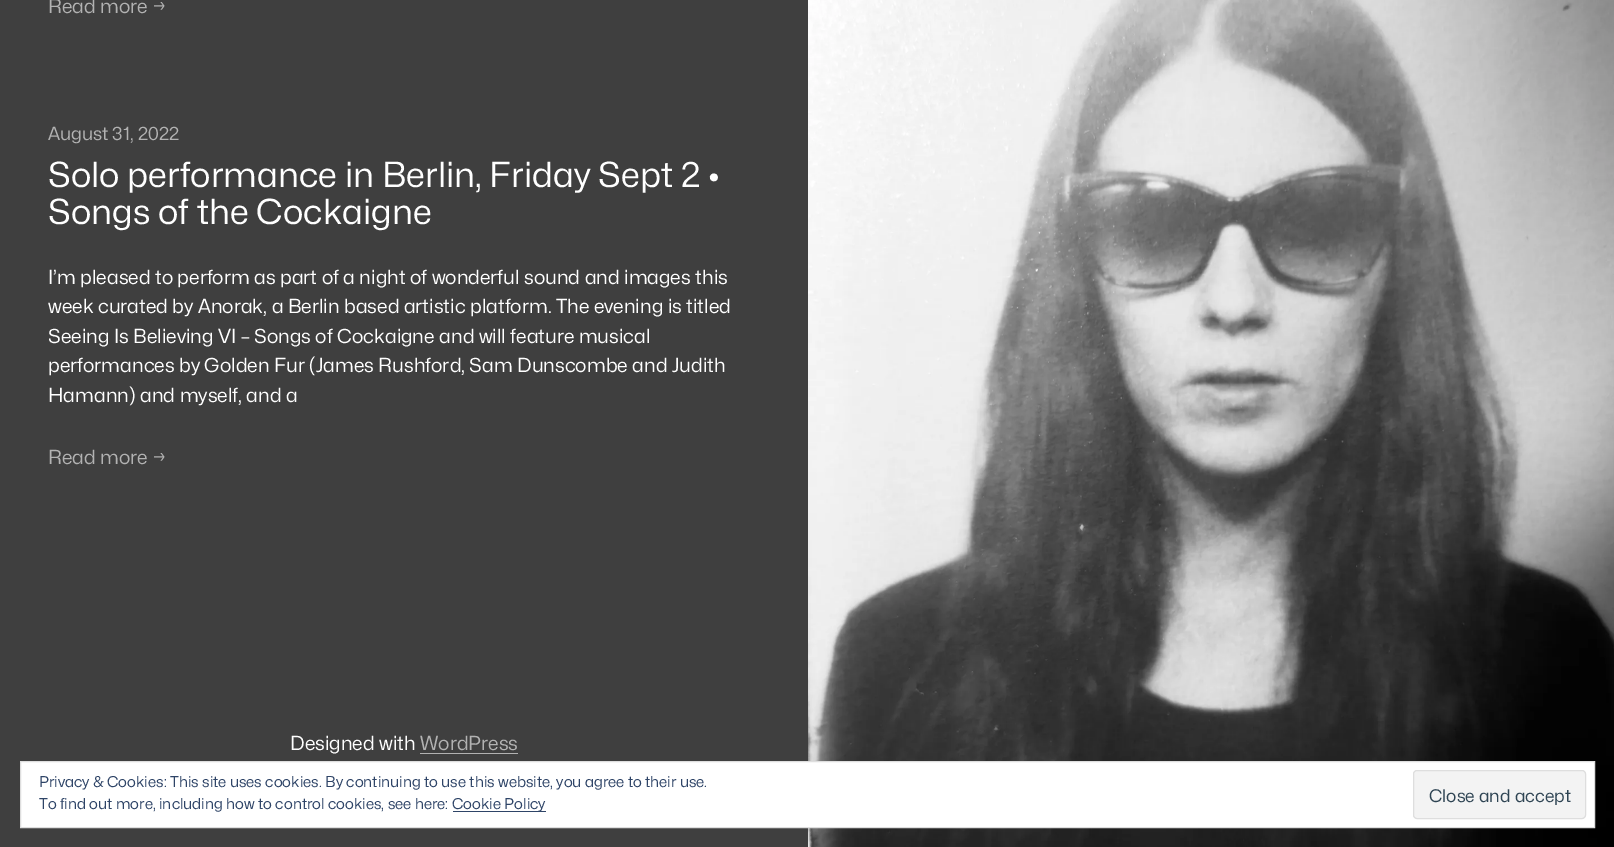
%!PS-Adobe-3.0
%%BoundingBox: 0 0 1614 847
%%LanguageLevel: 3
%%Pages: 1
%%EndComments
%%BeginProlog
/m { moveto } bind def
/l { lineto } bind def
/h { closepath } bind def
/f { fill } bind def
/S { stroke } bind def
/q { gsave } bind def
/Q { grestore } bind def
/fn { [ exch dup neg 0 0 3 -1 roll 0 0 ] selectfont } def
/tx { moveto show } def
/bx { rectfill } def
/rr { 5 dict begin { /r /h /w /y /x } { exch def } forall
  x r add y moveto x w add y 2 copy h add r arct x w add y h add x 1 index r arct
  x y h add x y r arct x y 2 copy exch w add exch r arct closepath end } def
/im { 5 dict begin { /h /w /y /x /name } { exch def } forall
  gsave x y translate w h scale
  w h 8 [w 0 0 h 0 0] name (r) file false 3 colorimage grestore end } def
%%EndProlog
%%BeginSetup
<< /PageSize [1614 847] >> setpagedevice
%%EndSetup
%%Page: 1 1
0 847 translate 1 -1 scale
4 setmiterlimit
0.247 setgray
0 0 1614 847 bx
/MonaSans-Regular 19.4 fn
0.698 setgray
(Read more →) 48 13 tx
/MonaSans-Regular 18.25 fn
(August 31, 2022) 48 140 tx
/MonaSans-Regular 34.75 fn
1 setgray
(Solo performance in Berlin, Friday Sept 2 •) 48 187 tx
(Songs of the Cockaigne) 48 224 tx
/MonaSans-Regular 19.4 fn
(I’m pleased to perform as part of a night of wonderful sound and images this) 48 284 tx
(week curated by Anorak, a Berlin based artistic platform. The evening is titled) 48 313 tx
(Seeing Is Believing VI – Songs of Cockaigne and will feature musical) 48 343 tx
(performances by Golden Fur \(James Rushford, Sam Dunscombe and Judith) 48 372 tx
(Hamann\) and myself, and a) 48 402 tx
0.698 setgray
(Read more →) 48 464 tx
1 setgray
(Designed with) 290 750 tx
0.698 setgray
(WordPress) 420 750 tx
420 753 98 1 bx
(image0.raw) 808 0 806 847 im
1 setgray
20.5 761.5 m 1594.5 761.5 l 1594.5 827.5 l 20.5 827.5 l h q f Q
0.871 setgray
S
/MonaSans-Regular 15 fn
0.18 0.267 0.404 setrgbcolor
(Privacy & Cookies: This site uses cookies. By continuing to use this website, you agree to their use.) 39 787 tx
(To find out more, including how to control cookies, see here:) 39 809 tx
453 811 93 1 bx
(Cookie Policy) 452 809 tx
0.953 setgray
1413.5 770.5 172 48 3.5 rr q f Q
0.871 setgray
S
/MonaSans-Regular 17.5 fn
0.18 0.267 0.325 setrgbcolor
(Close and accept) 1429 802 tx
showpage
%%EOF
